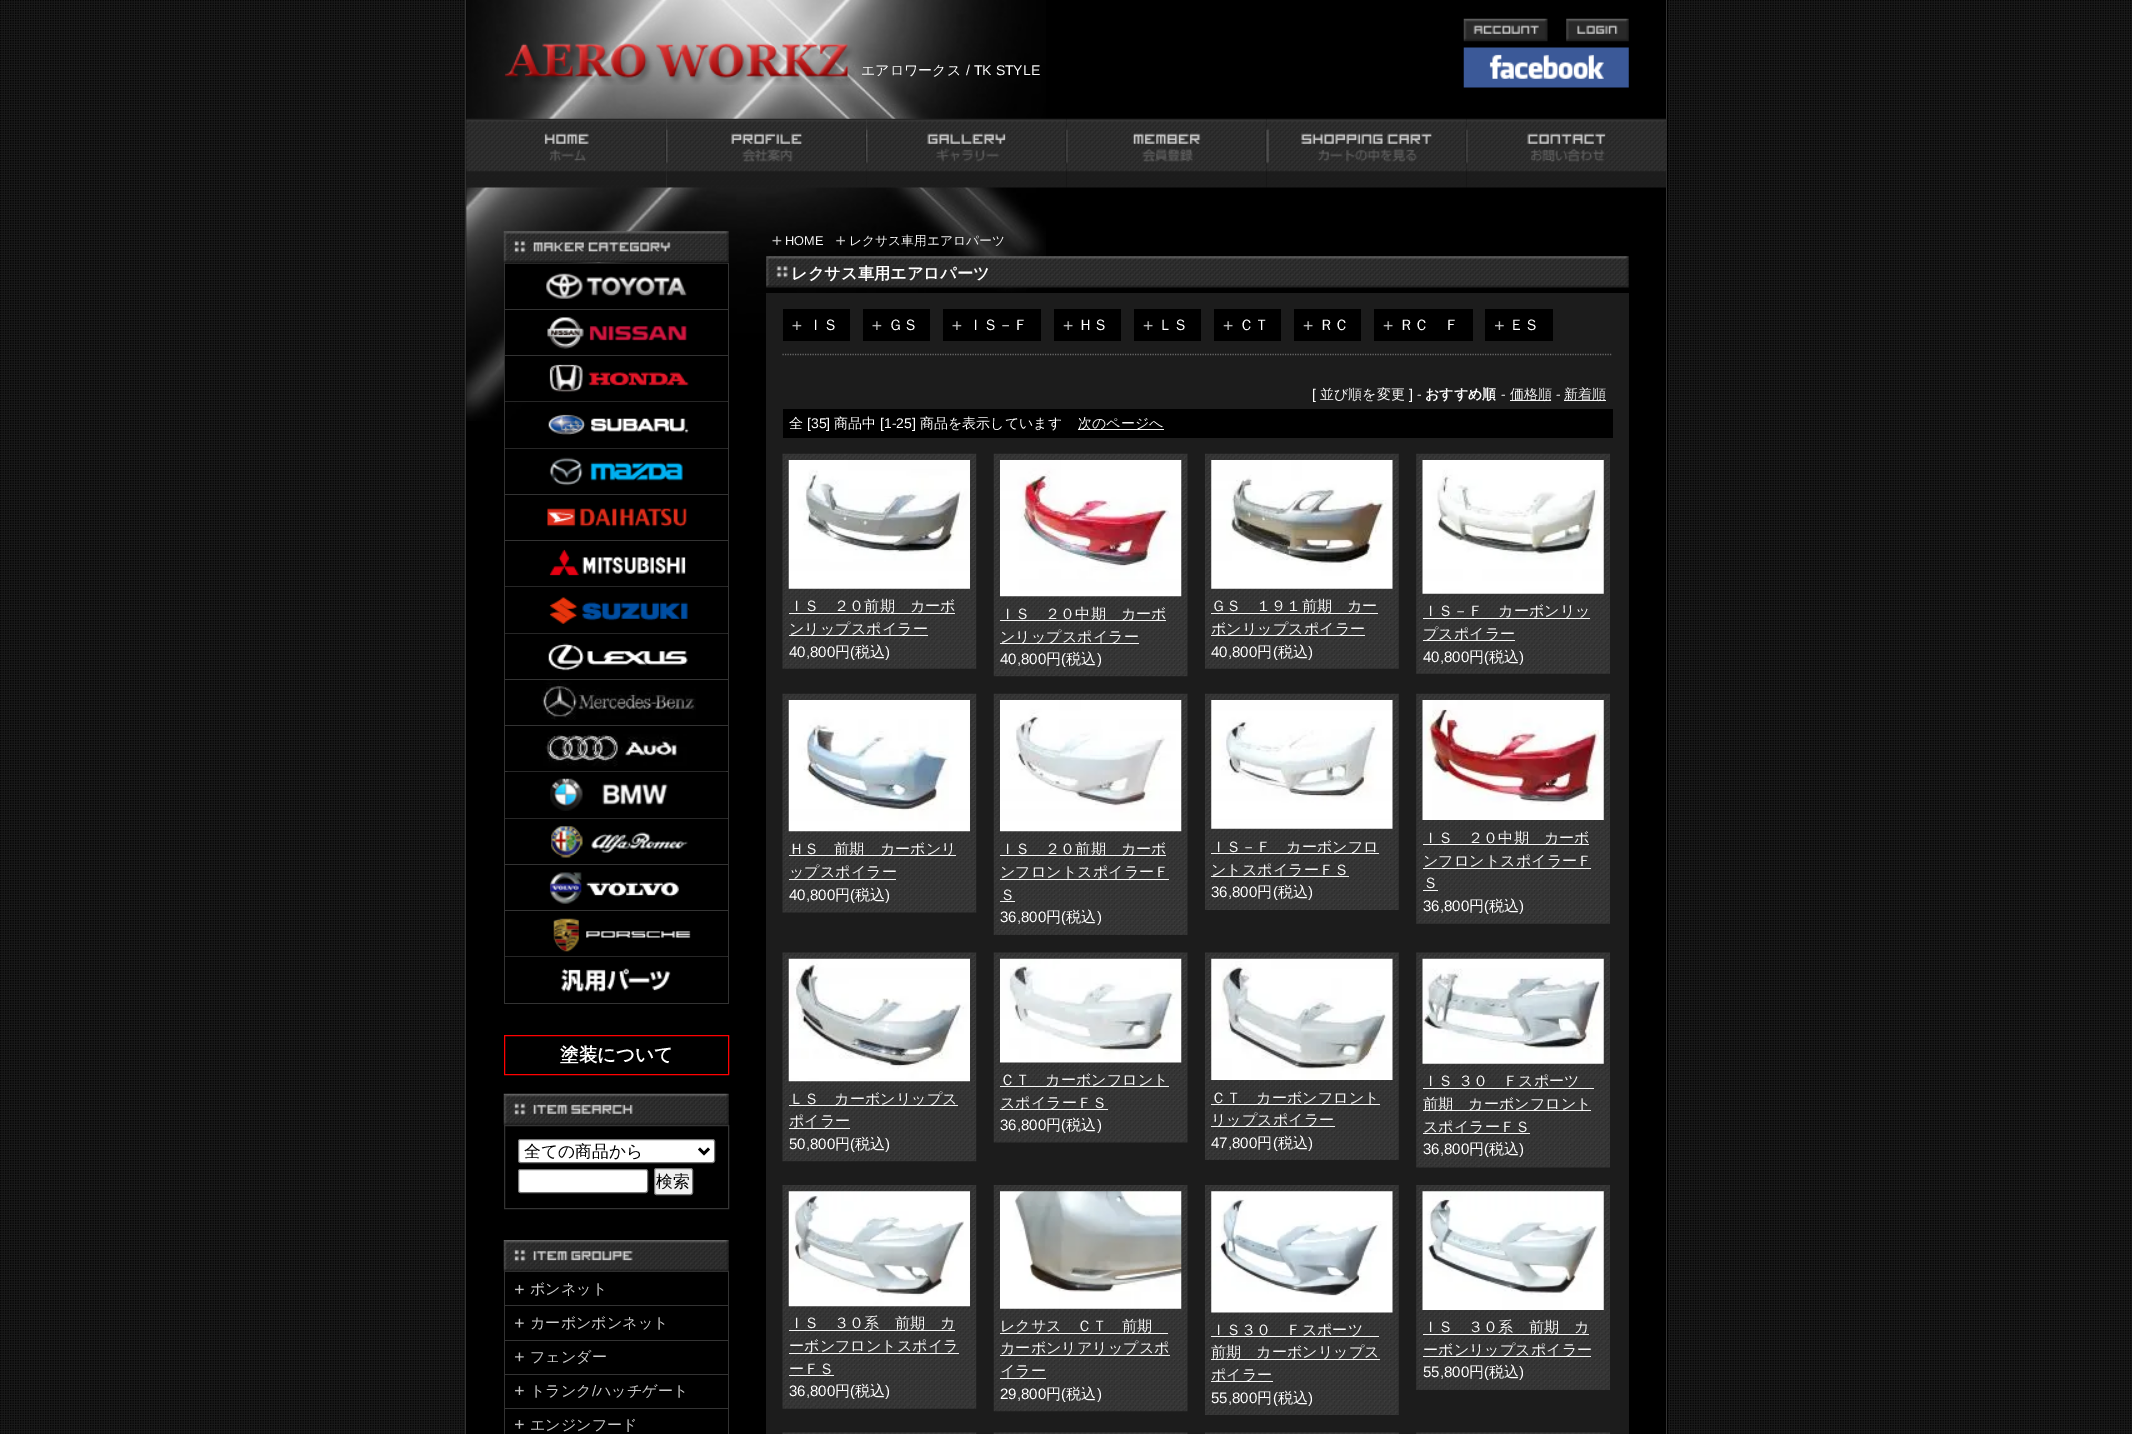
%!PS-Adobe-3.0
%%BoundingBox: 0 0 2132 1434
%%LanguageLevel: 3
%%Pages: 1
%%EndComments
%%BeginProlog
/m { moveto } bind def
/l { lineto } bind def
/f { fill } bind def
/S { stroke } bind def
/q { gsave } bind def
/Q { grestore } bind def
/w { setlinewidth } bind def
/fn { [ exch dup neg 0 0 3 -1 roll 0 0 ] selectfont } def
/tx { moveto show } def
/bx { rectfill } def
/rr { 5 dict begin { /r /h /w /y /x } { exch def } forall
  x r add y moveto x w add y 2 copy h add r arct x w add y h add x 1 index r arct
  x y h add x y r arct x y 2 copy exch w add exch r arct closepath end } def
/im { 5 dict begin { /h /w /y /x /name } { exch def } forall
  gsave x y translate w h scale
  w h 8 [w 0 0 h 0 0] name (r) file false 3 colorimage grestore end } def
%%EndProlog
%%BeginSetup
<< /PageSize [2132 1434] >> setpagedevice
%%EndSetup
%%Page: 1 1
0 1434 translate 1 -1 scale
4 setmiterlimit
1 setgray
0 0 2132 1434 bx
(image0.raw) 0 0 2132 1434 im
0 setgray
466 0 1202 1434 bx
(image1.raw) 466 0 580 421 im
0.2 setgray
1666 0 1 1434 bx
465 0 1 1434 bx
(image2.raw) 504 43 351 42 im
/WenQuanYiZenHei-Medium 14 fn
1 setgray
(エアロワークス) 861 75 tx
/LiberationSans-Regular 14 fn
(/ TK STYLE) 966 75 tx
(image3.raw) 1463 18 85 24 im
(image4.raw) 1566 18 63 24 im
(image5.raw) 1463 47 166 41 im
(image6.raw) 466 118 201 70 im
(image7.raw) 666 118 201 70 im
(image8.raw) 866 118 201 70 im
(image9.raw) 1066 118 201 70 im
(image10.raw) 1266 118 201 70 im
(image11.raw) 1466 118 201 70 im
(image12.raw) 503 231 226 32 im
0 setgray
505 264 223 133 bx
0.2 setgray
504 263 225 1 bx
728 263 1 741 bx
504 263 1 741 bx
505 309 223 1 bx
(image13.raw) 505 263 223 36 im
505 355 223 1 bx
(image14.raw) 547 317 140 32 im
505 401 223 1 bx
(image15.raw) 505 364 223 38 im
505 448 223 1 bx
(image16.raw) 548 414 141 21 im
505 494 223 1 bx
(image17.raw) 505 448 223 38 im
505 540 223 1 bx
(image18.raw) 547 508 140 19 im
505 586 223 1 bx
(image19.raw) 505 549 223 38 im
505 633 223 1 bx
(image20.raw) 549 597 139 27 im
505 679 223 1 bx
(image21.raw) 505 633 223 38 im
505 725 223 1 bx
(image22.raw) 541 680 155 40 im
505 771 223 1 bx
(image23.raw) 507 734 219 38 im
505 818 223 1 bx
(image24.raw) 550 778 118 33 im
505 864 223 1 bx
(image25.raw) 505 818 223 40 im
505 910 223 1 bx
(image26.raw) 549 872 130 32 im
505 956 223 1 bx
(image27.raw) 505 918 223 39 im
505 1003 223 1 bx
(image28.raw) 561 968 110 24 im
1 0 0 setrgbcolor
504.5 1035.5 224 39 rectstroke
/WenQuanYiZenHei-Bold 18.5 fn
1 setgray
(塗装について) 560 1061 tx
(image29.raw) 503 1093 226 32 im
0.2 setgray
504.5 1125.5 224 83 rectstroke
1 setgray
518.5 1139.5 196 23 2 rr q f Q
0.463 setgray
S
0 setgray
2.5 w
699 1148.5 m 704 1153.5 l 709 1148.5 l S
/WenQuanYiZenHei-Medium 16.75 fn
(全ての商品から) 524 1157 tx
1 setgray
518.5 1169.5 129 23 2 rr q f Q
0.463 setgray
1 w
S
0.937 setgray
654.5 1168.5 38 26 2 rr q f Q
0.463 setgray
S
0 setgray
(検索) 656 1187 tx
0.2 setgray
504 1271 225 1 bx
728 1271 1 163 bx
504 1271 1 163 bx
(image30.raw) 503 1240 226 32 im
505 1305 223 1 bx
(image31.raw) 515 1285 9 9 im
/WenQuanYiZenHei-Medium 15.1 fn
0.8 setgray
(ボンネット) 530 1294 tx
0.2 setgray
505 1340 223 1 bx
(image32.raw) 515 1318 9 10 im
0.8 setgray
(カーボンボンネット) 530 1328 tx
0.2 setgray
505 1374 223 1 bx
(image33.raw) 515 1352 9 10 im
0.8 setgray
(フェンダー) 530 1362 tx
0.2 setgray
505 1408 223 1 bx
(image34.raw) 515 1386 9 9 im
0.8 setgray
(トランク) 530 1396 tx
/LiberationSans-Regular 15.1 fn
(/) 592 1396 tx
/WenQuanYiZenHei-Medium 15.1 fn
(ハッチゲート) 596 1396 tx
(image31.raw) 515 1420 9 9 im
(エンジンフード) 530 1430 tx
(image35.raw) 772 236 10 9 im
/LiberationSans-Regular 12.8 fn
0.961 setgray
(HOME) 785 245 tx
(image36.raw) 836 236 9 9 im
/WenQuanYiZenHei-Medium 12.8 fn
(レクサス車用エアロパーツ) 849 245 tx
(image37.raw) 766 256 863 32 im
/WenQuanYiZenHei-Bold 16.25 fn
1 setgray
(レクサス車用エアロパーツ) 791 279 tx
0.11 setgray
766 293 863 1141 bx
0.4 setgray
1.2 w
[1.25 1.25] 0 setdash
782.5 354.5 m 1612.5 354.5 l S
0 setgray
783 309 67 32 bx
(image38.raw) 792 321 10 9 im
/WenQuanYiZenHei-Medium 15.1 fn
1 setgray
(ＩＳ) 808 330 tx
0 setgray
863 309 67 32 bx
(image38.raw) 872 321 10 9 im
1 setgray
(ＧＳ) 888 330 tx
0 setgray
943 309 98 32 bx
(image39.raw) 952 321 10 9 im
1 setgray
(ＩＳ－Ｆ) 968 330 tx
0 setgray
1054 309 67 32 bx
(image40.raw) 1063 321 10 9 im
1 setgray
(ＨＳ) 1078 330 tx
0 setgray
1134 309 67 32 bx
(image40.raw) 1143 321 10 9 im
1 setgray
(ＬＳ) 1158 330 tx
0 setgray
1214 309 67 32 bx
(image41.raw) 1223 321 10 9 im
1 setgray
(ＣＴ) 1239 330 tx
0 setgray
1294 309 67 32 bx
(image41.raw) 1303 321 10 9 im
1 setgray
(ＲＣ) 1319 330 tx
0 setgray
1374 309 99 32 bx
(image40.raw) 1383 321 10 9 im
1 setgray
(ＲＣ　Ｆ) 1399 330 tx
0 setgray
1485 309 68 32 bx
(image34.raw) 1495 321 9 9 im
1 setgray
(ＥＳ) 1509 330 tx
/LiberationSans-Regular 14 fn
([) 1312 399 tx
/WenQuanYiZenHei-Medium 14 fn
(並び順を変更) 1320 399 tx
/LiberationSans-Regular 14 fn
(] -) 1409 399 tx
/WenQuanYiZenHei-Bold 14 fn
(おすすめ順) 1425 399 tx
/LiberationSans-Regular 14 fn
(-) 1501 399 tx
0.961 setgray
1510 400 41 1 bx
/WenQuanYiZenHei-Medium 14 fn
(価格順) 1510 399 tx
/LiberationSans-Regular 14 fn
1 setgray
(-) 1556 399 tx
0.961 setgray
1564 400 42 1 bx
/WenQuanYiZenHei-Medium 14 fn
(新着順) 1564 399 tx
0 setgray
783 409 830 29 bx
1 setgray
(全) 789 428 tx
/LiberationSans-Regular 14 fn
([35]) 807 428 tx
/WenQuanYiZenHei-Medium 14 fn
(商品中) 834 428 tx
/LiberationSans-Regular 14 fn
([1-25]) 880 428 tx
/WenQuanYiZenHei-Medium 14 fn
(商品を表示しています) 920 428 tx
0.961 setgray
1078 429 86 1 bx
(次のページへ) 1078 428 tx
(image42.raw) 782 453 195 216 im
(image43.raw) 788 460 182 129 im
/WenQuanYiZenHei-Medium 15.1 fn
(ＩＳ　２０前期　カーボ) 789 611 tx
789 613 166 1 bx
789 635 139 1 bx
(ンリップスポイラー) 789 634 tx
/LiberationSans-Regular 15.1 fn
1 setgray
(40,800) 789 657 tx
/WenQuanYiZenHei-Medium 15.1 fn
(円) 835 657 tx
/LiberationSans-Regular 15.1 fn
(\() 850 657 tx
/WenQuanYiZenHei-Medium 15.1 fn
(税込) 855 657 tx
/LiberationSans-Regular 15.1 fn
(\)) 885 657 tx
(image44.raw) 993 453 195 224 im
(image45.raw) 1000 460 182 137 im
0.961 setgray
1000 620 166 1 bx
/WenQuanYiZenHei-Medium 15.1 fn
(ＩＳ　２０中期　カーボ) 1000 619 tx
1000 643 139 1 bx
(ンリップスポイラー) 1000 642 tx
/LiberationSans-Regular 15.1 fn
1 setgray
(40,800) 1000 664 tx
/WenQuanYiZenHei-Medium 15.1 fn
(円) 1046 664 tx
/LiberationSans-Regular 15.1 fn
(\() 1061 664 tx
/WenQuanYiZenHei-Medium 15.1 fn
(税込) 1066 664 tx
/LiberationSans-Regular 15.1 fn
(\)) 1097 664 tx
(image46.raw) 1205 453 194 216 im
(image47.raw) 1211 460 182 129 im
/WenQuanYiZenHei-Medium 15.1 fn
0.961 setgray
(ＧＳ　１９１前期　カー) 1211 611 tx
1211 613 167 1 bx
1211 635 154 1 bx
(ボンリップスポイラー) 1211 634 tx
/LiberationSans-Regular 15.1 fn
1 setgray
(40,800) 1211 657 tx
/WenQuanYiZenHei-Medium 15.1 fn
(円) 1257 657 tx
/LiberationSans-Regular 15.1 fn
(\() 1273 657 tx
/WenQuanYiZenHei-Medium 15.1 fn
(税込) 1278 657 tx
/LiberationSans-Regular 15.1 fn
(\)) 1308 657 tx
(image48.raw) 1416 453 194 221 im
(image49.raw) 1422 460 182 134 im
0.961 setgray
1423 618 167 1 bx
/WenQuanYiZenHei-Medium 15.1 fn
(ＩＳ－Ｆ　カーボンリッ) 1423 616 tx
1423 640 92 1 bx
(プスポイラー) 1423 639 tx
/LiberationSans-Regular 15.1 fn
1 setgray
(40,800) 1423 662 tx
/WenQuanYiZenHei-Medium 15.1 fn
(円) 1469 662 tx
/LiberationSans-Regular 15.1 fn
(\() 1484 662 tx
/WenQuanYiZenHei-Medium 15.1 fn
(税込) 1489 662 tx
/LiberationSans-Regular 15.1 fn
(\)) 1519 662 tx
(image50.raw) 782 693 195 220 im
(image51.raw) 788 700 182 132 im
0.961 setgray
789 855 167 1 bx
/WenQuanYiZenHei-Medium 15.1 fn
(ＨＳ　前期　カーボンリ) 789 854 tx
(ップスポイラー) 789 877 tx
789 879 107 1 bx
/LiberationSans-Regular 15.1 fn
1 setgray
(40,800) 789 900 tx
/WenQuanYiZenHei-Medium 15.1 fn
(円) 835 900 tx
/LiberationSans-Regular 15.1 fn
(\() 850 900 tx
/WenQuanYiZenHei-Medium 15.1 fn
(税込) 855 900 tx
/LiberationSans-Regular 15.1 fn
(\)) 885 900 tx
(image52.raw) 993 693 195 242 im
(image53.raw) 1000 700 182 132 im
0.961 setgray
1000 855 166 1 bx
/WenQuanYiZenHei-Medium 15.1 fn
(ＩＳ　２０前期　カーボ) 1000 854 tx
(ンフロントスポイラーＦ) 1000 877 tx
1000 879 169 1 bx
(Ｓ) 1000 900 tx
1000 901 15 1 bx
/LiberationSans-Regular 15.1 fn
1 setgray
(36,800) 1000 922 tx
/WenQuanYiZenHei-Medium 15.1 fn
(円) 1046 922 tx
/LiberationSans-Regular 15.1 fn
(\() 1061 922 tx
/WenQuanYiZenHei-Medium 15.1 fn
(税込) 1066 922 tx
/LiberationSans-Regular 15.1 fn
(\)) 1097 922 tx
(image54.raw) 1205 693 194 217 im
(image55.raw) 1211 700 182 129 im
0.961 setgray
1211 853 168 1 bx
/WenQuanYiZenHei-Medium 15.1 fn
(ＩＳ－Ｆ　カーボンフロ) 1211 852 tx
1211 876 138 1 bx
(ントスポイラーＦＳ) 1211 875 tx
/LiberationSans-Regular 15.1 fn
1 setgray
(36,800) 1211 897 tx
/WenQuanYiZenHei-Medium 15.1 fn
(円) 1257 897 tx
/LiberationSans-Regular 15.1 fn
(\() 1273 897 tx
/WenQuanYiZenHei-Medium 15.1 fn
(税込) 1278 897 tx
/LiberationSans-Regular 15.1 fn
(\)) 1308 897 tx
(image56.raw) 1416 693 194 231 im
(image57.raw) 1422 700 182 120 im
0.961 setgray
1423 844 166 1 bx
/WenQuanYiZenHei-Medium 15.1 fn
(ＩＳ　２０中期　カーボ) 1423 843 tx
(ンフロントスポイラーＦ) 1423 866 tx
1423 868 168 1 bx
(Ｓ) 1423 888 tx
1423 890 15 1 bx
/LiberationSans-Regular 15.1 fn
1 setgray
(36,800) 1423 911 tx
/WenQuanYiZenHei-Medium 15.1 fn
(円) 1469 911 tx
/LiberationSans-Regular 15.1 fn
(\() 1484 911 tx
/WenQuanYiZenHei-Medium 15.1 fn
(税込) 1489 911 tx
/LiberationSans-Regular 15.1 fn
(\)) 1519 911 tx
(image58.raw) 782 952 195 210 im
(image59.raw) 788 958 182 124 im
0.961 setgray
789 1105 169 1 bx
/WenQuanYiZenHei-Medium 15.1 fn
(ＬＳ　カーボンリップス) 789 1104 tx
(ポイラー) 789 1126 tx
789 1128 61 1 bx
/LiberationSans-Regular 15.1 fn
1 setgray
(50,800) 789 1149 tx
/WenQuanYiZenHei-Medium 15.1 fn
(円) 835 1149 tx
/LiberationSans-Regular 15.1 fn
(\() 850 1149 tx
/WenQuanYiZenHei-Medium 15.1 fn
(税込) 855 1149 tx
/LiberationSans-Regular 15.1 fn
(\)) 885 1149 tx
(image60.raw) 993 952 195 191 im
(image61.raw) 1000 958 182 105 im
0.961 setgray
1000 1086 169 1 bx
/WenQuanYiZenHei-Medium 15.1 fn
(ＣＴ　カーボンフロント) 1000 1085 tx
1000 1109 108 1 bx
(スポイラーＦＳ) 1000 1108 tx
/LiberationSans-Regular 15.1 fn
1 setgray
(36,800) 1000 1130 tx
/WenQuanYiZenHei-Medium 15.1 fn
(円) 1046 1130 tx
/LiberationSans-Regular 15.1 fn
(\() 1061 1130 tx
/WenQuanYiZenHei-Medium 15.1 fn
(税込) 1066 1130 tx
/LiberationSans-Regular 15.1 fn
(\)) 1097 1130 tx
(image62.raw) 1205 952 194 208 im
(image63.raw) 1211 958 182 122 im
0.961 setgray
1211 1104 169 1 bx
/WenQuanYiZenHei-Medium 15.1 fn
(ＣＴ　カーボンフロント) 1211 1103 tx
1211 1126 124 1 bx
(リップスポイラー) 1211 1125 tx
/LiberationSans-Regular 15.1 fn
1 setgray
(47,800) 1211 1148 tx
/WenQuanYiZenHei-Medium 15.1 fn
(円) 1257 1148 tx
/LiberationSans-Regular 15.1 fn
(\() 1273 1148 tx
/WenQuanYiZenHei-Medium 15.1 fn
(税込) 1278 1148 tx
/LiberationSans-Regular 15.1 fn
(\)) 1308 1148 tx
(image64.raw) 1416 952 194 216 im
(image65.raw) 1422 958 182 106 im
/WenQuanYiZenHei-Medium 15.1 fn
0.961 setgray
(ＩＳ ３０　Ｆスポーツ) 1423 1086 tx
1423 1088 171 1 bx
1423 1110 168 1 bx
(前期　カーボンフロント) 1423 1109 tx
1423 1133 107 1 bx
(スポイラーＦＳ) 1423 1132 tx
/LiberationSans-Regular 15.1 fn
1 setgray
(36,800) 1423 1154 tx
/WenQuanYiZenHei-Medium 15.1 fn
(円) 1469 1154 tx
/LiberationSans-Regular 15.1 fn
(\() 1484 1154 tx
/WenQuanYiZenHei-Medium 15.1 fn
(税込) 1489 1154 tx
/LiberationSans-Regular 15.1 fn
(\)) 1519 1154 tx
(image66.raw) 782 1185 195 224 im
(image67.raw) 788 1191 182 116 im
/WenQuanYiZenHei-Medium 15.1 fn
0.961 setgray
(ＩＳ　３０系　前期　カ) 789 1328 tx
789 1330 166 1 bx
(ーボンフロントスポイラ) 789 1351 tx
789 1353 170 1 bx
(ーＦＳ) 789 1374 tx
789 1375 45 1 bx
/LiberationSans-Regular 15.1 fn
1 setgray
(36,800) 789 1396 tx
/WenQuanYiZenHei-Medium 15.1 fn
(円) 835 1396 tx
/LiberationSans-Regular 15.1 fn
(\() 850 1396 tx
/WenQuanYiZenHei-Medium 15.1 fn
(税込) 855 1396 tx
/LiberationSans-Regular 15.1 fn
(\)) 885 1396 tx
(image68.raw) 993 1185 195 227 im
(image69.raw) 1000 1191 182 118 im
0.961 setgray
1000 1333 168 1 bx
/WenQuanYiZenHei-Medium 15.1 fn
(レクサス　ＣＴ　前期) 1000 1331 tx
1000 1355 170 1 bx
(カーボンリアリップスポ) 1000 1353 tx
(イラー) 1000 1376 tx
1000 1378 46 1 bx
/LiberationSans-Regular 15.1 fn
1 setgray
(29,800) 1000 1399 tx
/WenQuanYiZenHei-Medium 15.1 fn
(円) 1046 1399 tx
/LiberationSans-Regular 15.1 fn
(\() 1061 1399 tx
/WenQuanYiZenHei-Medium 15.1 fn
(税込) 1066 1399 tx
/LiberationSans-Regular 15.1 fn
(\)) 1097 1399 tx
(image70.raw) 1205 1185 194 230 im
(image71.raw) 1211 1191 182 122 im
0.961 setgray
1211 1336 168 1 bx
/WenQuanYiZenHei-Medium 15.1 fn
(ＩＳ３０　Ｆスポーツ) 1211 1335 tx
1211 1359 169 1 bx
(前期　カーボンリップス) 1211 1357 tx
1211 1381 62 1 bx
(ポイラー) 1211 1380 tx
/LiberationSans-Regular 15.1 fn
1 setgray
(55,800) 1211 1403 tx
/WenQuanYiZenHei-Medium 15.1 fn
(円) 1257 1403 tx
/LiberationSans-Regular 15.1 fn
(\() 1273 1403 tx
/WenQuanYiZenHei-Medium 15.1 fn
(税込) 1278 1403 tx
/LiberationSans-Regular 15.1 fn
(\)) 1308 1403 tx
(image72.raw) 1416 1185 194 205 im
(image73.raw) 1422 1191 182 119 im
/WenQuanYiZenHei-Medium 15.1 fn
0.961 setgray
(ＩＳ　３０系　前期　カ) 1423 1332 tx
1423 1334 166 1 bx
1423 1356 168 1 bx
(ーボンリップスポイラー) 1423 1355 tx
/LiberationSans-Regular 15.1 fn
1 setgray
(55,800) 1423 1377 tx
/WenQuanYiZenHei-Medium 15.1 fn
(円) 1469 1377 tx
/LiberationSans-Regular 15.1 fn
(\() 1484 1377 tx
/WenQuanYiZenHei-Medium 15.1 fn
(税込) 1489 1377 tx
/LiberationSans-Regular 15.1 fn
(\)) 1519 1377 tx
(image74.raw) 782 1432 195 2 im
(image75.raw) 993 1432 195 2 im
(image76.raw) 1205 1432 194 2 im
(image77.raw) 1416 1432 194 2 im
showpage
%%EOF
